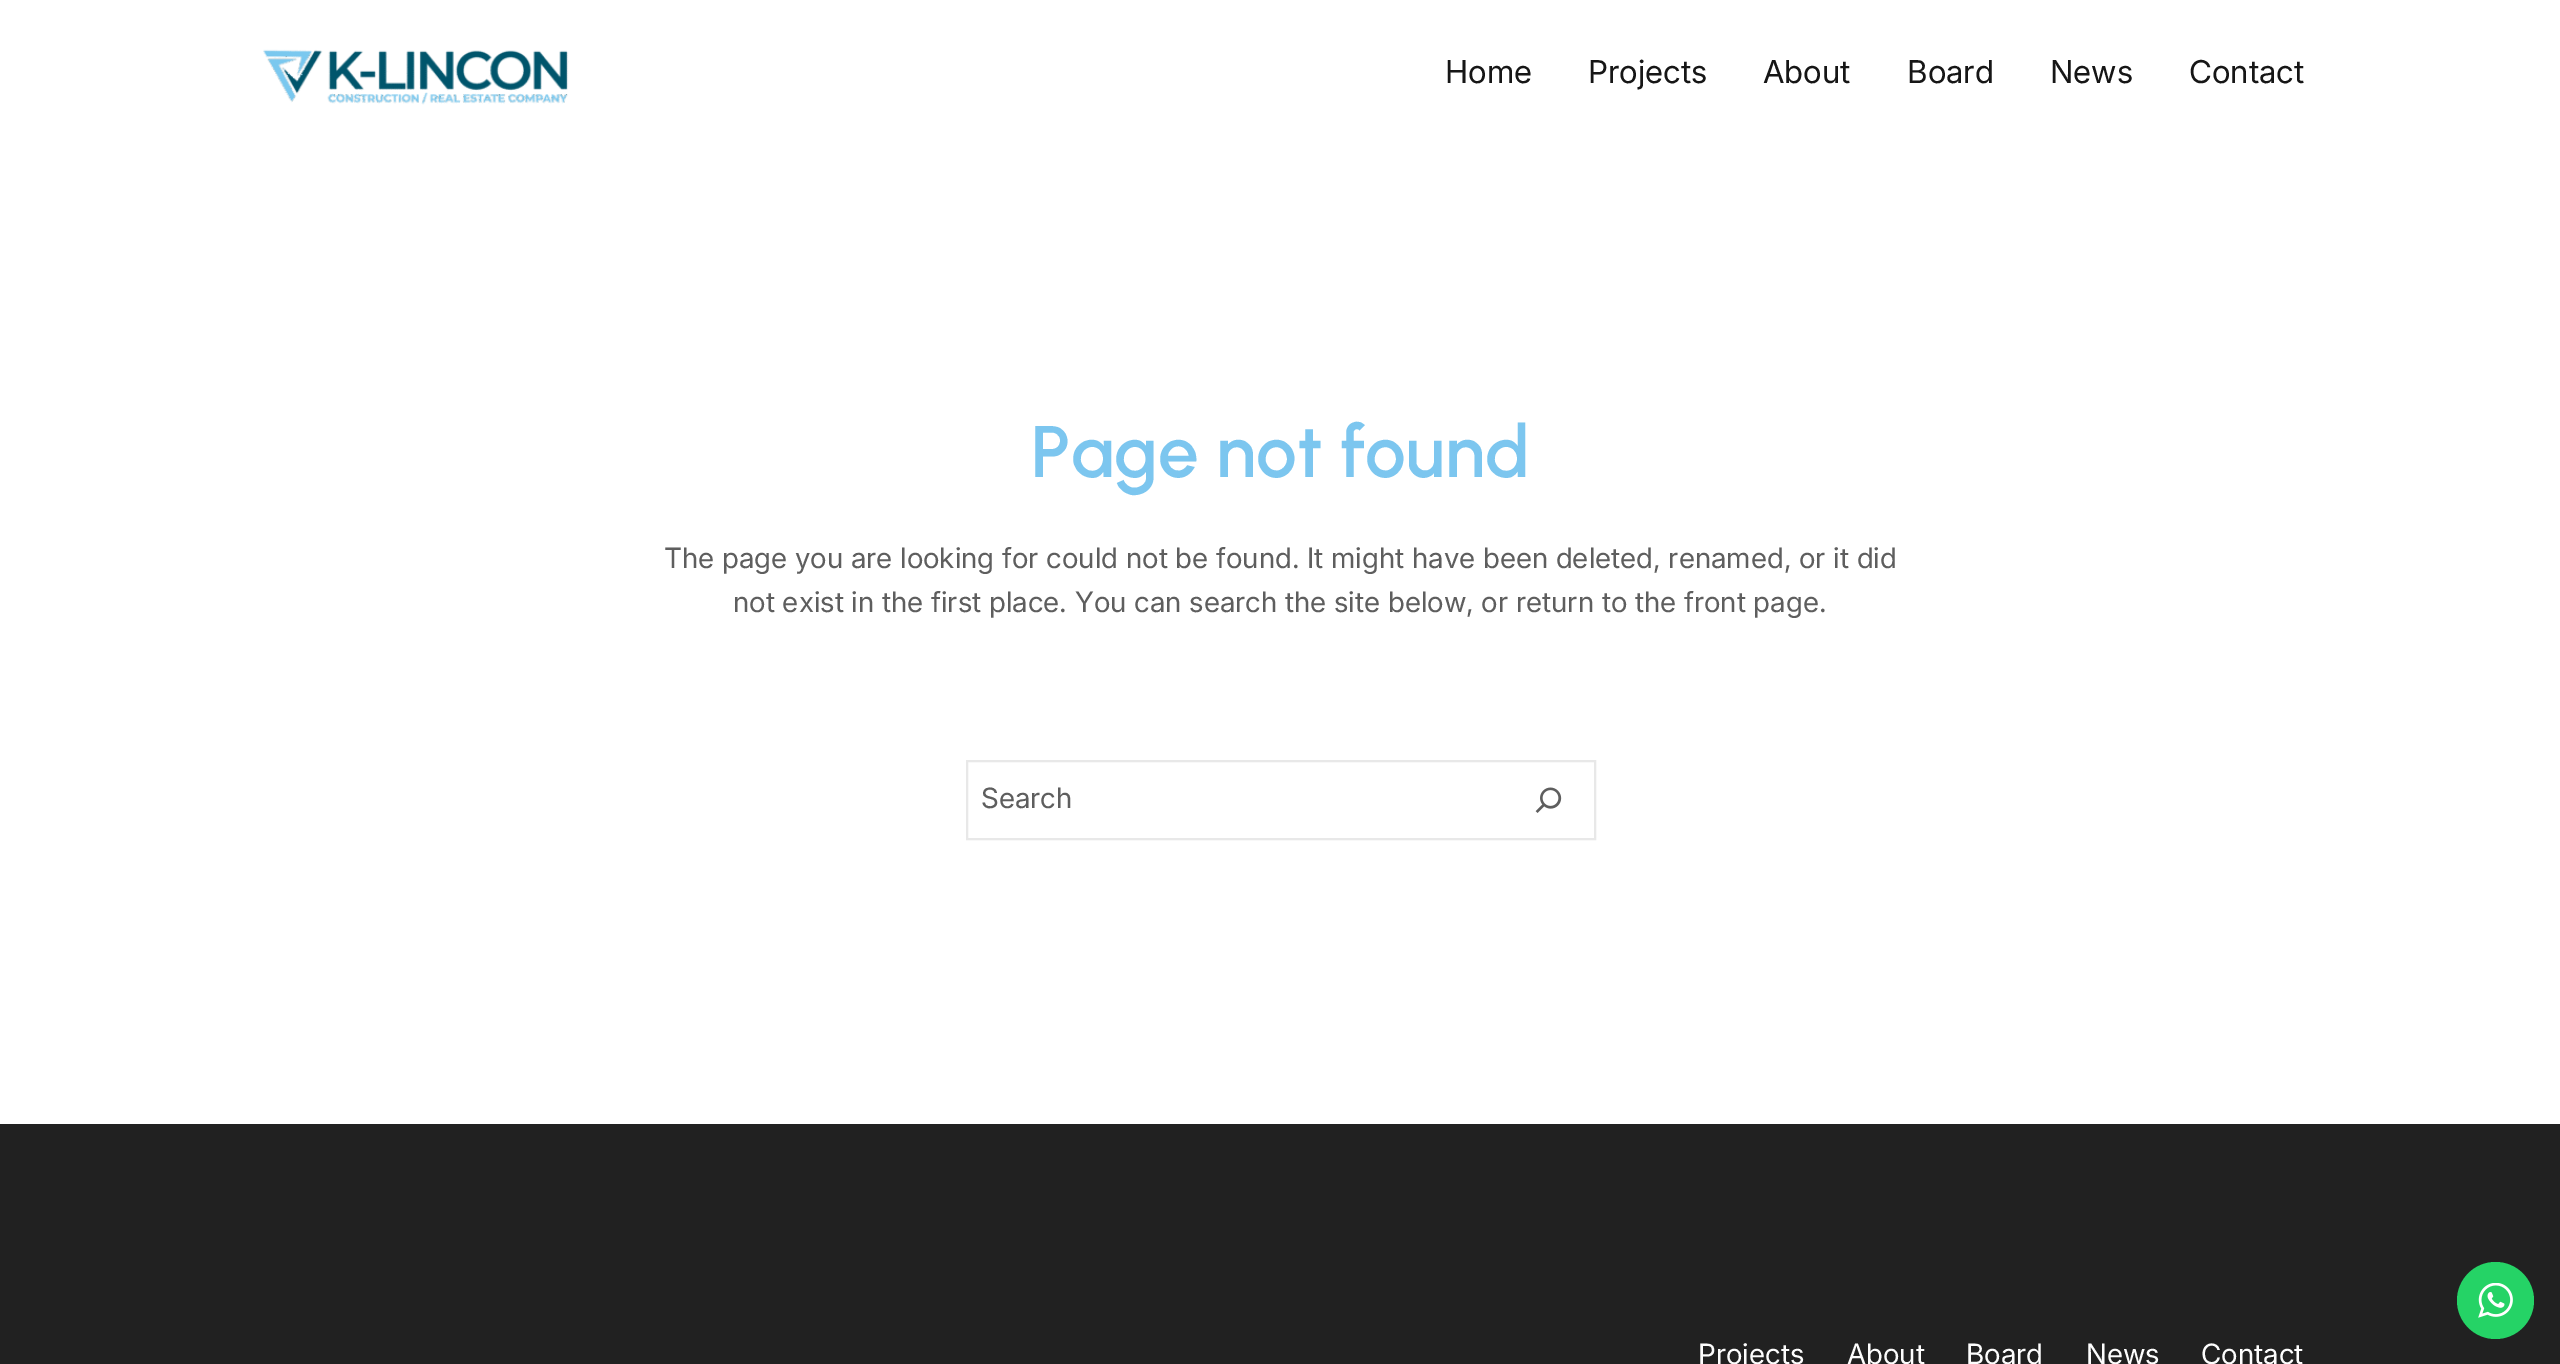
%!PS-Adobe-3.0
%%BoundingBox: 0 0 2560 1364
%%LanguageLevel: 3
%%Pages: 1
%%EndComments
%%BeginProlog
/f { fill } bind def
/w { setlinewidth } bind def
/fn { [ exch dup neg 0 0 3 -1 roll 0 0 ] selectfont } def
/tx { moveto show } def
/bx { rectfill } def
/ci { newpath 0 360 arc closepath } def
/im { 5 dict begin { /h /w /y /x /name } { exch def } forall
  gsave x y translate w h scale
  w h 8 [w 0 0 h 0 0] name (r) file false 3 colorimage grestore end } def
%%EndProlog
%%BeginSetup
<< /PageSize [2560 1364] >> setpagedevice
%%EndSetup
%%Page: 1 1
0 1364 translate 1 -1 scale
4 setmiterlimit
1 setgray
0 0 2560 1364 bx
(image0.raw) 263 49 306 56 im
/Inter-Regular 31.5 fn
0.086 setgray
(Home) 1445 83 tx
(Projects) 1588 83 tx
(About) 1763 83 tx
(Board) 1907 83 tx
(News) 2050 83 tx
(Contact) 2189 83 tx
/Urbanist-SemiBold 72.75 fn
0.486 0.776 0.937 setrgbcolor
(Page not found) 1031 477 tx
/Inter-Regular 28 fn
0.369 setgray
(The page you are looking for could not be found. It might have been deleted, renamed, or it did) 664 568 tx
(not exist in the first place. You can search the site below, or return to the front page.) 733 612 tx
0.91 setgray
2 w
967 761 628 78 rectstroke
0.369 setgray
(Search) 981 808 tx
(image1.raw) 1535 787 27 26 im
0.129 setgray
0 1124 2560 240 bx
0.992 setgray
(Projects) 1698 1364 tx
(About) 1847 1364 tx
(Board) 1966 1364 tx
(News) 2086 1364 tx
(Contact) 2201 1364 tx
0.145 0.827 0.4 setrgbcolor
2495.5 1300.5 38.5 ci f
(image2.raw) 2478 1283 35 35 im
showpage
%%EOF
